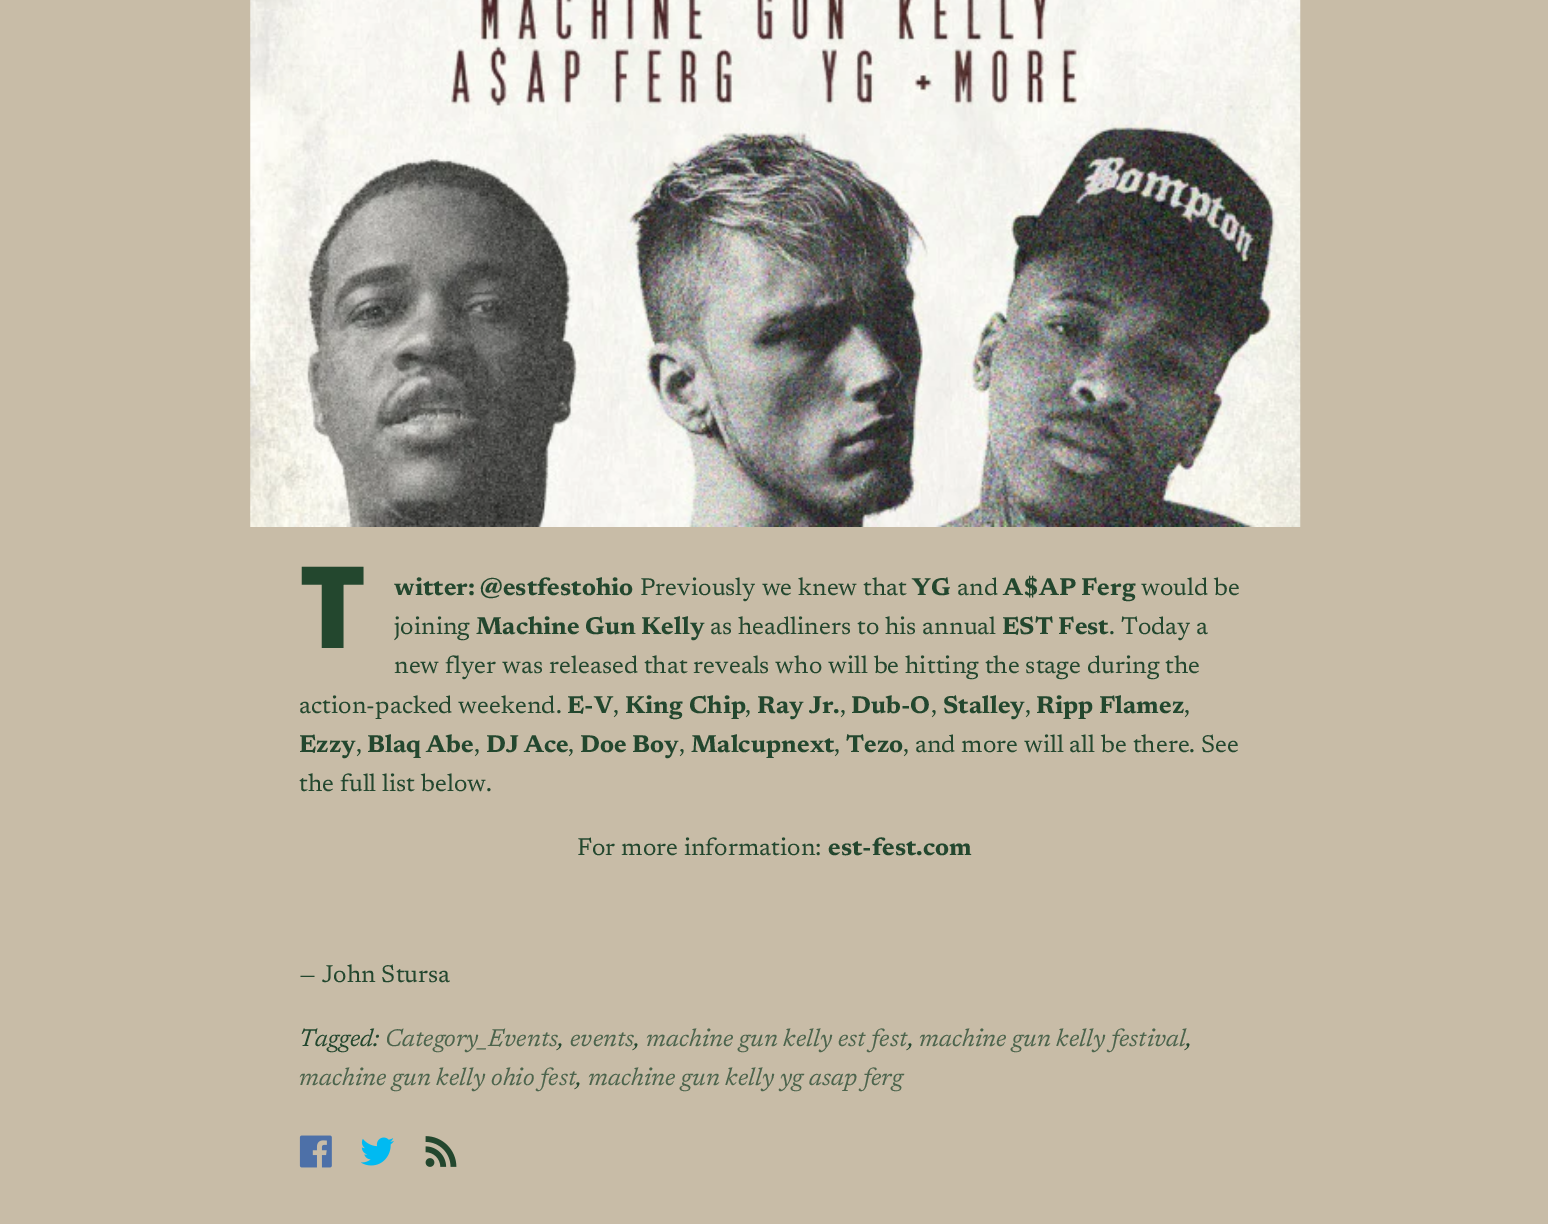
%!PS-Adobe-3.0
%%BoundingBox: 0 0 1548 1224
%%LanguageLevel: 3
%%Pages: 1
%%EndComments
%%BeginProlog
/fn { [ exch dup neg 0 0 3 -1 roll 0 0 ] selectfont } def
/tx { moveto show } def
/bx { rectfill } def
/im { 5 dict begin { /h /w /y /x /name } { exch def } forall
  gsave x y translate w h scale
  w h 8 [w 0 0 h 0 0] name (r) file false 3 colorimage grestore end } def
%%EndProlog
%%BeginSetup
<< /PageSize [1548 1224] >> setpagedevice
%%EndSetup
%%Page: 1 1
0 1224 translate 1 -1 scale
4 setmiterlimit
0.784 0.737 0.655 setrgbcolor
0 0 1548 1224 bx
(image0.raw) 250 0 1051 527 im
/NotoSans-Black 114 fn
0.137 0.278 0.18 setrgbcolor
(T) 299 648 tx
/Newsreader-Bold 24.5 fn
(witter: @estfestohio) 394 595 tx
/Newsreader-Regular 24.5 fn
(Previously we knew that) 640 595 tx
/Newsreader-Bold 24.5 fn
(YG) 912 595 tx
/Newsreader-Regular 24.5 fn
(and) 957 595 tx
/Newsreader-Bold 24.5 fn
(A$AP Ferg) 1003 595 tx
/Newsreader-Regular 24.5 fn
(would be) 1141 595 tx
(joining) 394 634 tx
/Newsreader-Bold 24.5 fn
(Machine Gun Kelly) 476 634 tx
/Newsreader-Regular 24.5 fn
(as headliners to his annual) 710 634 tx
/Newsreader-Bold 24.5 fn
(EST Fest) 1002 634 tx
/Newsreader-Regular 24.5 fn
(. Today a) 1109 634 tx
(new flyer was released that reveals who will be hitting the stage during the) 394 673 tx
(action-packed weekend.) 299 713 tx
/Newsreader-Bold 24.5 fn
(E-V) 567 713 tx
/Newsreader-Regular 24.5 fn
(,) 613 713 tx
/Newsreader-Bold 24.5 fn
(King) 625 713 tx
(Chip) 689 713 tx
/Newsreader-Regular 24.5 fn
(,) 745 713 tx
/Newsreader-Bold 24.5 fn
(Ray Jr.) 757 713 tx
/Newsreader-Regular 24.5 fn
(,) 840 713 tx
/Newsreader-Bold 24.5 fn
(Dub-O) 851 713 tx
/Newsreader-Regular 24.5 fn
(,) 931 713 tx
/Newsreader-Bold 24.5 fn
(Stalley) 943 713 tx
/Newsreader-Regular 24.5 fn
(,) 1025 713 tx
/Newsreader-Bold 24.5 fn
(Ripp) 1036 713 tx
(Flamez) 1099 713 tx
/Newsreader-Regular 24.5 fn
(,) 1184 713 tx
/Newsreader-Bold 24.5 fn
(Ezzy) 299 752 tx
/Newsreader-Regular 24.5 fn
(,) 356 752 tx
/Newsreader-Bold 24.5 fn
(Blaq Abe) 367 752 tx
/Newsreader-Regular 24.5 fn
(,) 474 752 tx
/Newsreader-Bold 24.5 fn
(DJ Ace) 486 752 tx
/Newsreader-Regular 24.5 fn
(,) 568 752 tx
/Newsreader-Bold 24.5 fn
(Doe Boy) 580 752 tx
/Newsreader-Regular 24.5 fn
(,) 679 752 tx
/Newsreader-Bold 24.5 fn
(Malcupnext) 691 752 tx
/Newsreader-Regular 24.5 fn
(,) 834 752 tx
/Newsreader-Bold 24.5 fn
(Tezo) 846 752 tx
/Newsreader-Regular 24.5 fn
(, and more will all be there. See) 903 752 tx
(the full list below.) 299 791 tx
(For more information:) 577 855 tx
/Newsreader-Bold 24.5 fn
(est-fest.com) 828 855 tx
/Newsreader-Regular 24.5 fn
(— John Stursa) 299 982 tx
/Newsreader-Italic 24.5 fn
(Tagged:) 299 1046 tx
0.298 0.392 0.298 setrgbcolor
(Category_Events) 385 1046 tx
(events) 570 1046 tx
(machine gun kelly est fest) 646 1046 tx
(machine gun kelly festival) 919 1046 tx
0.137 0.278 0.18 setrgbcolor
(,) 558 1046 tx
(,) 634 1046 tx
(,) 908 1046 tx
(,) 1186 1046 tx
0.298 0.392 0.298 setrgbcolor
(machine gun kelly ohio fest) 299 1085 tx
(machine gun kelly yg asap ferg) 588 1085 tx
0.137 0.278 0.18 setrgbcolor
(,) 576 1085 tx
(image1.raw) 299 1135 33 33 im
(image2.raw) 361 1137 33 29 im
(image3.raw) 425 1136 32 31 im
showpage
%%EOF
